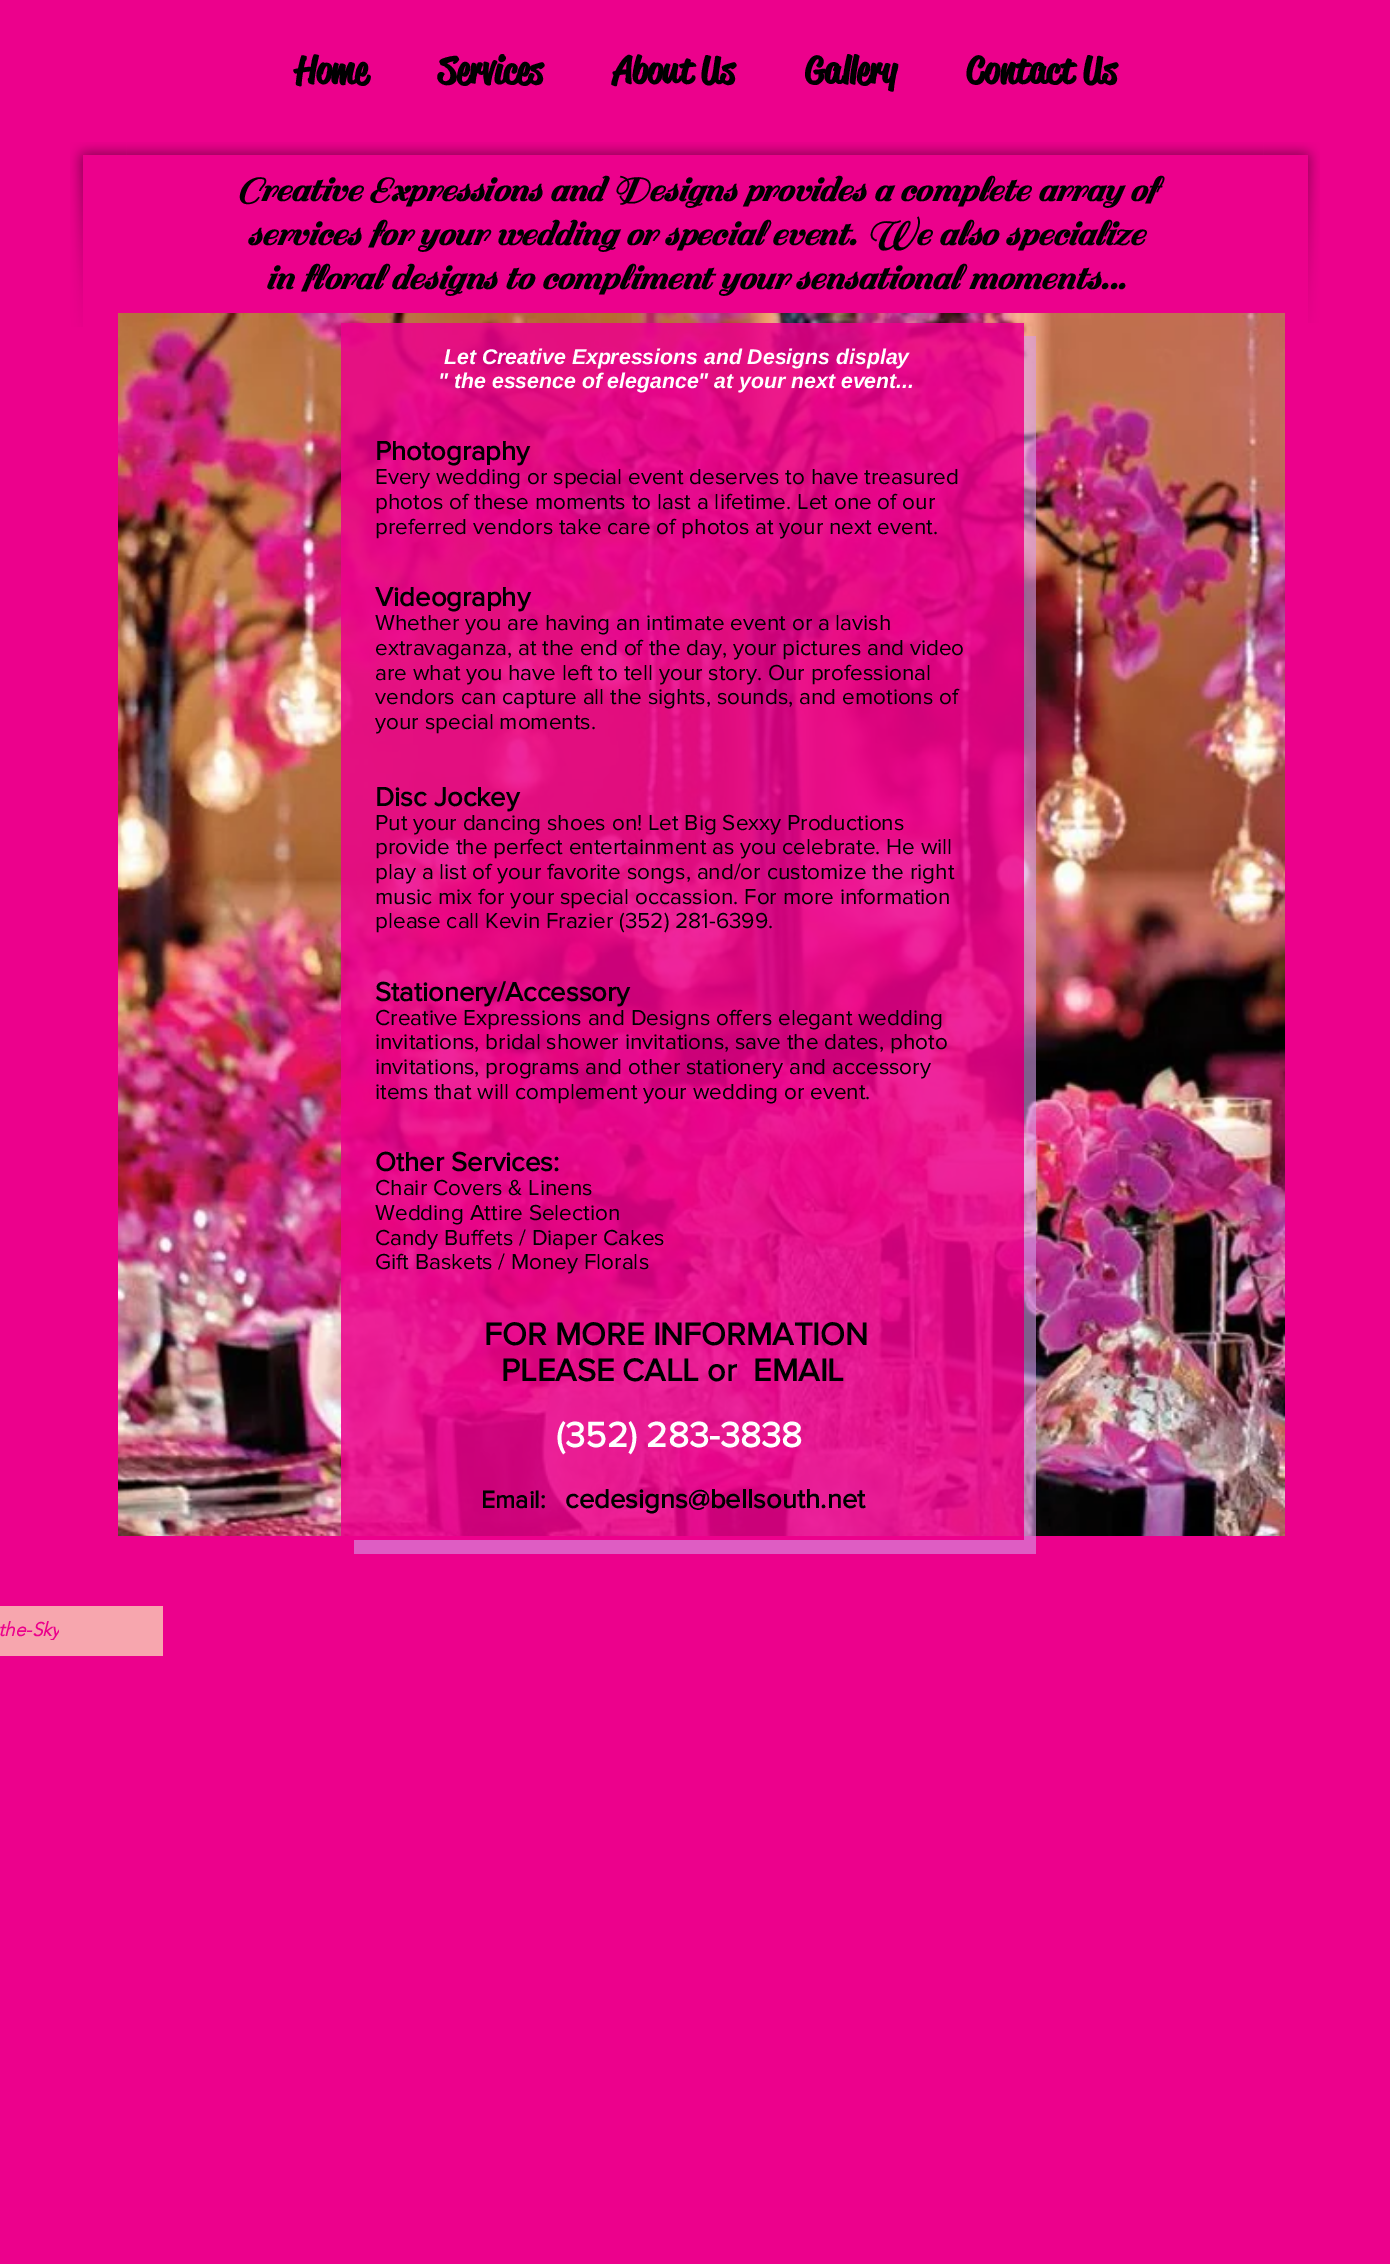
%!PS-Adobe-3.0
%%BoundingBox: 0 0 1390 2264
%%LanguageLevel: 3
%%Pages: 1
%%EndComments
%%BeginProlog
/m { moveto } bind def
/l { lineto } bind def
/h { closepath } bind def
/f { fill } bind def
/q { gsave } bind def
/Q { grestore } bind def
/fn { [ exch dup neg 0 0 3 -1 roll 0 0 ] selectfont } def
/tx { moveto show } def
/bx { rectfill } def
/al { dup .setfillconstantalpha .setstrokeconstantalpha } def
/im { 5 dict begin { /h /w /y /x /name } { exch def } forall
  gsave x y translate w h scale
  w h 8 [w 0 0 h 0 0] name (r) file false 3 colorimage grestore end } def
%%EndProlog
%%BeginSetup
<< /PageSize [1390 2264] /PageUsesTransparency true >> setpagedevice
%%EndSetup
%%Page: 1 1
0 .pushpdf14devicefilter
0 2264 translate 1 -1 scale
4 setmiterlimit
0.925 0.004 0.549 setrgbcolor
0 0 1390 2264 bx
/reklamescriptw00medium-Bold 37.5 fn
0 setgray
(Home) 295 83 tx
(Services) 438 83 tx
(About Us) 613 83 tx
(Gallery) 805 83 tx
(Contact Us) 966 83 tx
(image0.raw) 70 142 57 185 im
(image1.raw) 126 142 1138 13 im
(image2.raw) 1263 142 57 181 im
0.925 0.004 0.549 setrgbcolor
83 155 1225 172 bx
/Sail-BoldItalic 37.5 fn
0 setgray
(Creative Expressions and Designs provides a complete array of) 235 201 tx
(services for your wedding or special event. We also specialize) 246 245 tx
(in floral designs to compliment your sensational moments...) 264 289 tx
(image3.raw) 118 313 1167 1223 im
0.6 al
0.835 0.608 0.91 setrgbcolor
354 1540 m 354 1554 l 1036 1554 l 1036 336 l 1024 336 l 1024 1540 l h f
0.86 al
0.925 0.004 0.549 setrgbcolor
341 323 683 1213 bx
/LiberationSans-BoldItalic 21.25 fn
1 al
1 setgray
(Let Creative Expressions and Designs display) 444 364 tx
(" the essence of elegance" at your next event...) 438 388 tx
/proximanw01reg-Bold 27.5 fn
0 setgray
(Photography) 375 460 tx
/proximanw01reg-Regular 22.5 fn
(Every wedding or special event deserves to have treasured) 375 484 tx
(photos of these moments to last a lifetime. Let one of our) 375 509 tx
(preferred vendors take care of photos at your next event.) 375 534 tx
/proximanw01reg-Bold 27.5 fn
(Videography) 375 606 tx
/proximanw01reg-Regular 22.5 fn
(Whether you are having an intimate event or a lavish) 375 630 tx
(extravaganza, at the end of the day, your pictures and video) 375 655 tx
(are what you have left to tell your story. Our professional) 375 680 tx
(vendors can capture all the sights, sounds, and emotions of) 375 704 tx
(your special moments.) 375 729 tx
/proximanw01reg-Bold 27.5 fn
(Disc Jockey) 375 806 tx
/proximanw01reg-Regular 22.5 fn
(Put your dancing shoes on! Let Big Sexxy Productions) 375 830 tx
(provide the perfect entertainment as you celebrate. He will) 375 854 tx
(play a list of your favorite songs, and/or customize the right) 375 879 tx
(music mix for your special occassion. For more information) 375 904 tx
(please call Kevin Frazier \(352\) 281-6399.) 375 928 tx
/proximanw01reg-Bold 27.5 fn
(Stationery/Accessory) 375 1001 tx
/proximanw01reg-Regular 22.5 fn
(Creative Expressions and Designs offers elegant wedding) 375 1025 tx
(invitations, bridal shower invitations, save the dates, photo) 375 1049 tx
(invitations, programs and other stationery and accessory) 375 1074 tx
(items that will complement your wedding or event.) 375 1099 tx
/proximanw01reg-Bold 27.5 fn
(Other Services:) 375 1171 tx
/proximanw01reg-Regular 22.5 fn
(Chair Covers & Linens) 375 1195 tx
(Wedding Attire Selection) 375 1220 tx
(Candy Buffets / Diaper Cakes) 375 1245 tx
(Gift Baskets / Money Florals) 375 1269 tx
/proximanw01reg-Bold 32.5 fn
(FOR MORE INFORMATION) 484 1345 tx
(PLEASE CALL or  EMAIL) 501 1381 tx
/proximanw01reg-Bold 36.25 fn
1 setgray
(\(352\) 283-3838) 556 1447 tx
/proximanw01reg-Bold 25 fn
0 setgray
(Email:) 481 1508 tx
/proximanw01reg-Bold 27.5 fn
(cedesigns@bellsouth.net) 565 1508 tx
0.969 0.651 0.682 setrgbcolor
0 1606 163 50 bx
q
0 1621 59 19 rectclip
/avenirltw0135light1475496-BoldItalic 19 fn
0.925 0.004 0.549 setrgbcolor
(the-Sky) -2 1636 tx
Q
.poppdf14devicefilter showpage
%%EOF
